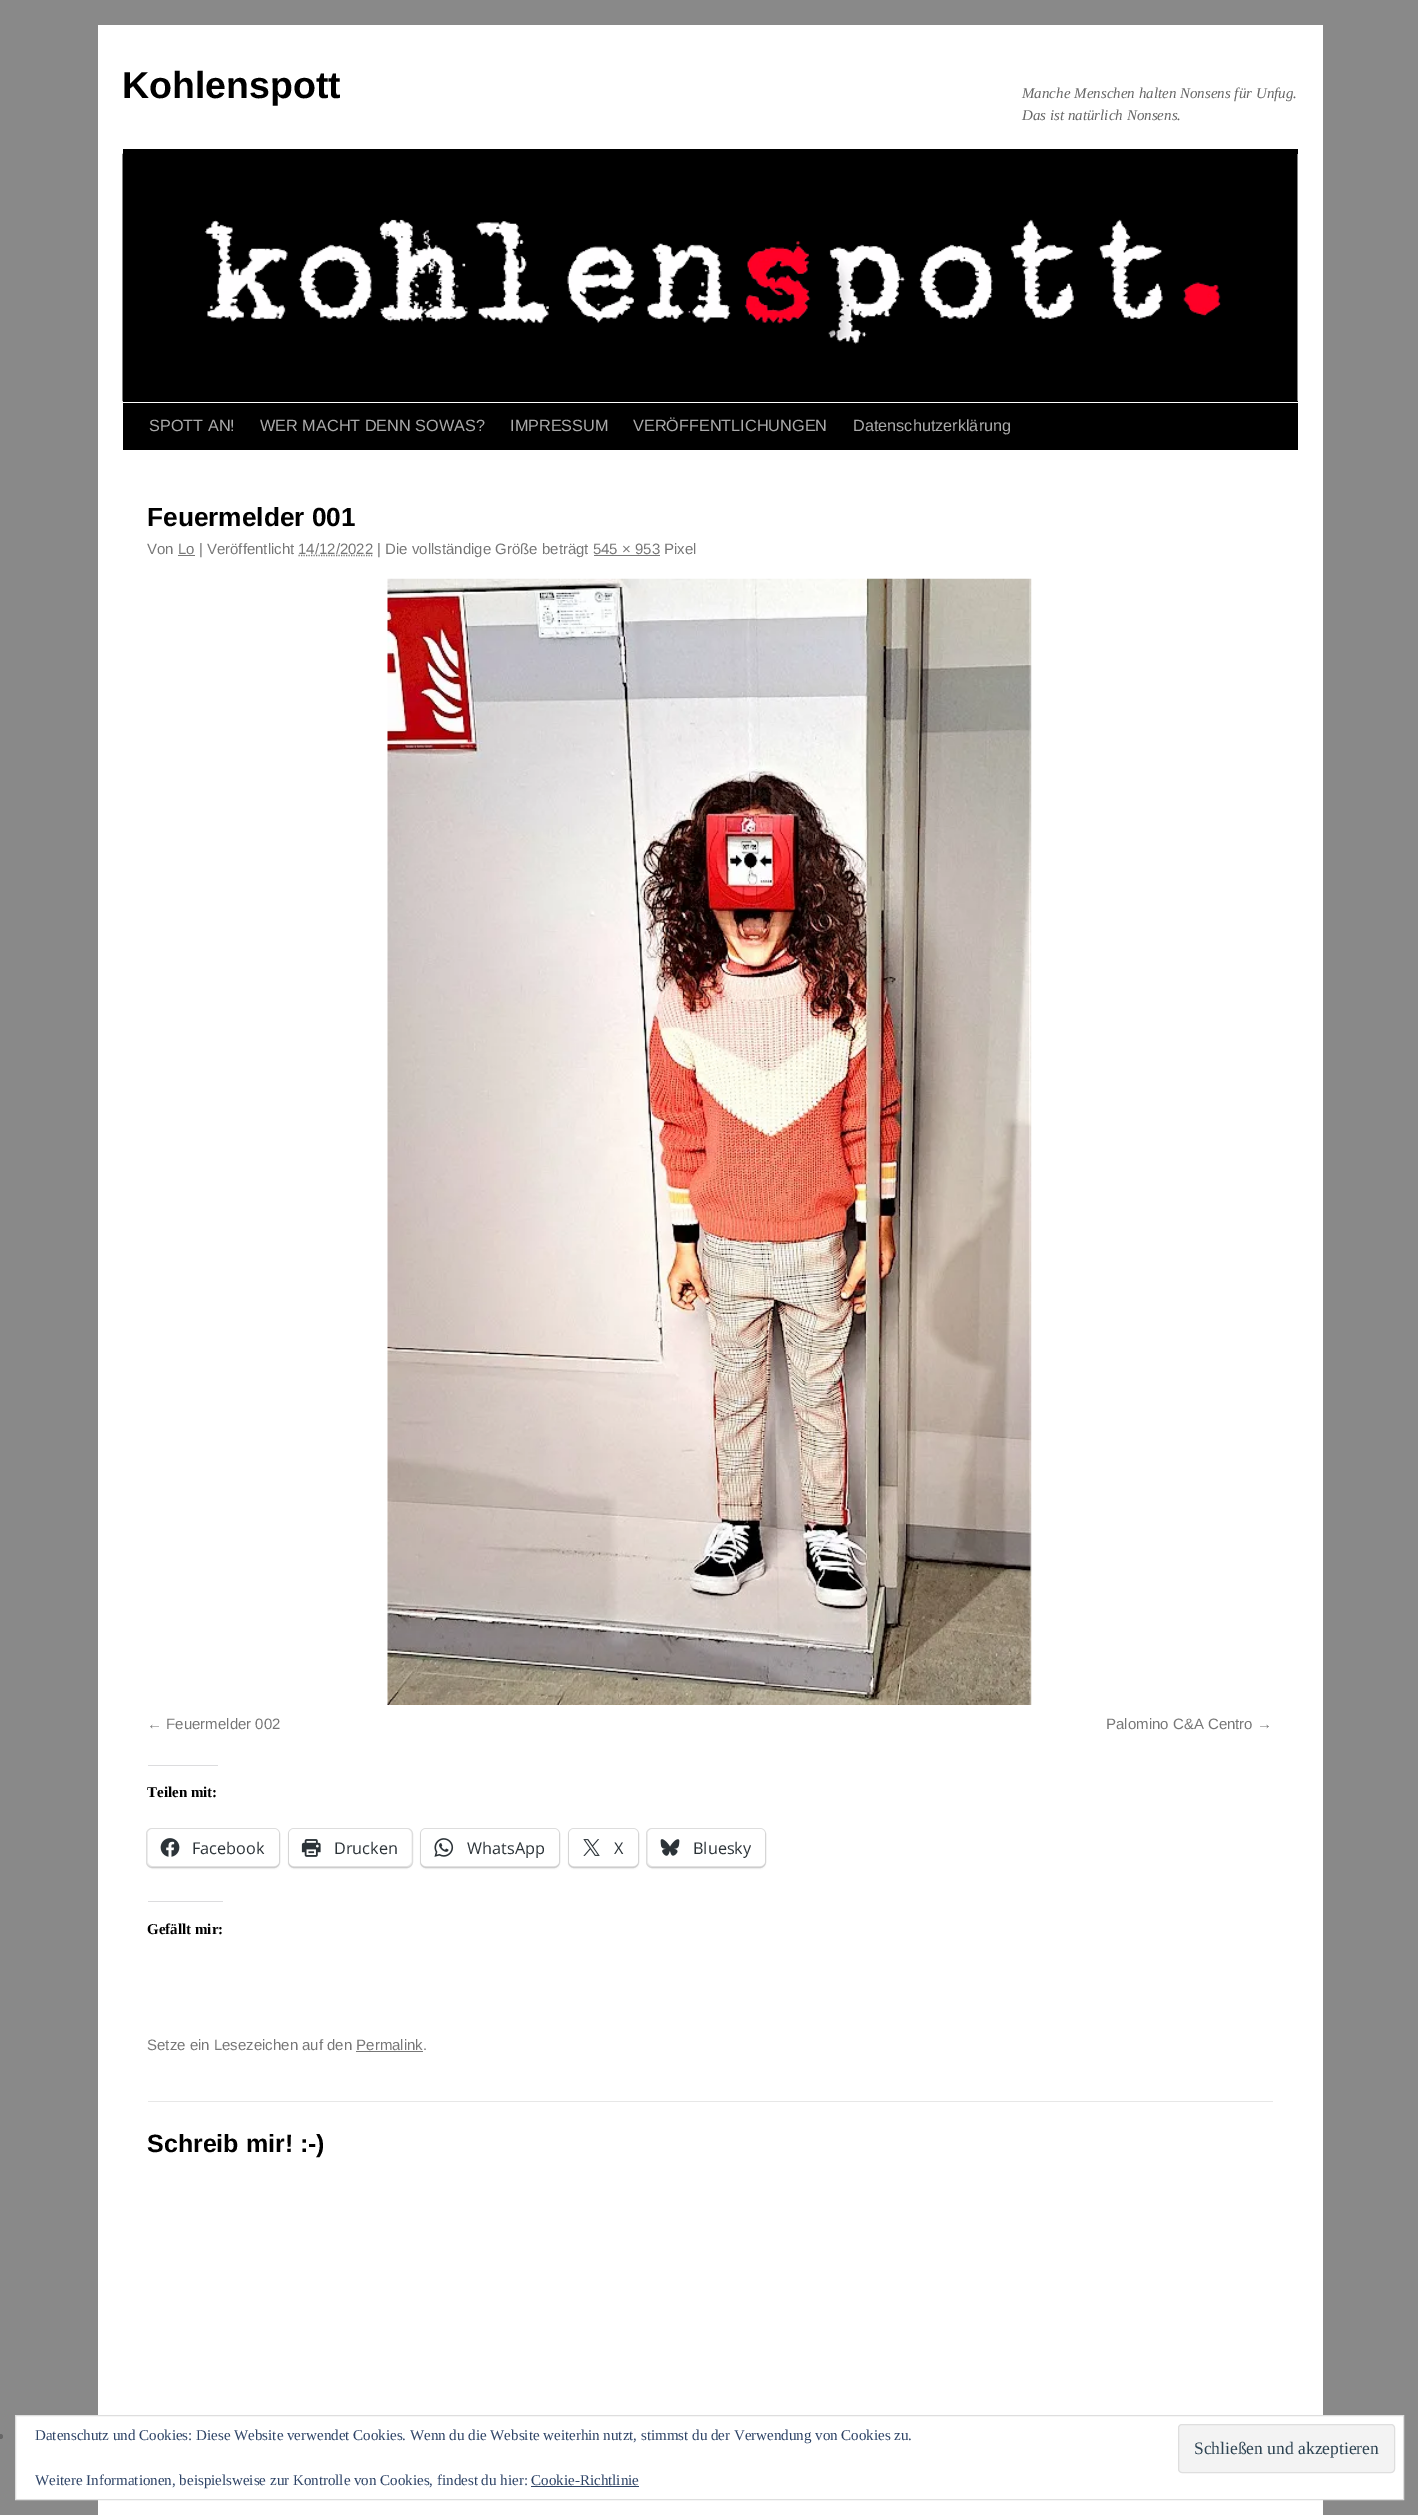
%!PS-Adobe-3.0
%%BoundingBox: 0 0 1418 2515
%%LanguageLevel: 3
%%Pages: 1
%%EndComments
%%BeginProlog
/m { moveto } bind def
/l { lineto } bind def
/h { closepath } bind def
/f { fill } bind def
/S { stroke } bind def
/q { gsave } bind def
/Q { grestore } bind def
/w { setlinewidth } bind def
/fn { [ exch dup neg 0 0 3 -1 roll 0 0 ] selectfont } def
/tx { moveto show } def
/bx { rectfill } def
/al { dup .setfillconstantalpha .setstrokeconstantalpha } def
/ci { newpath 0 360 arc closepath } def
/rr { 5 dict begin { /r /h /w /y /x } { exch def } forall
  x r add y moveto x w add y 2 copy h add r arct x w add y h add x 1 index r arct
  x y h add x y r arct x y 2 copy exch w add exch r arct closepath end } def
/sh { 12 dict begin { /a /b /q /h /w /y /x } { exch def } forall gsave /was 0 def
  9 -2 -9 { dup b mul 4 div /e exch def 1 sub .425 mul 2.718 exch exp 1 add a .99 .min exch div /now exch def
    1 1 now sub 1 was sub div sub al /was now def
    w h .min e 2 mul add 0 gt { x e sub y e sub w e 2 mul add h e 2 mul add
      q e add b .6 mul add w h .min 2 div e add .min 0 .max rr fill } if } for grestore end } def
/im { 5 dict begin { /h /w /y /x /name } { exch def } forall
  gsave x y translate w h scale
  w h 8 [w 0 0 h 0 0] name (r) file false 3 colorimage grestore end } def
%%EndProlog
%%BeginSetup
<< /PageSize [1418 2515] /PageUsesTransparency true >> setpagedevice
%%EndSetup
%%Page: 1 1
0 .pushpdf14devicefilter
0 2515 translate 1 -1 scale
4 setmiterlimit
0.537 setgray
0 0 1418 2515 bx
1 setgray
98 25 1225 2490 bx
/LiberationSans-Bold 37.5 fn
0 setgray
(Kohlenspott) 122 98 tx
/LiberationSerif-Italic 15 fn
0.4 setgray
(Manche Menschen halten Nonsens für Unfug.) 1022 98 tx
(Das ist natürlich Nonsens.) 1022 120 tx
0 setgray
123 149 1175 5 bx
123 401 1175 1 bx
(image0.raw) 122 153 1176 249 im
123 403 1175 47 bx
/LiberationSans-Regular 16.25 fn
0.667 setgray
(SPOTT AN!) 149 431 tx
(WER MACHT DENN SOWAS?) 260 431 tx
(IMPRESSUM) 510 431 tx
(VERÖFFENTLICHUNGEN) 633 431 tx
(Datenschutzerklärung) 853 431 tx
/LiberationSans-Bold 26.25 fn
0 setgray
(Feuermelder 001) 147 526 tx
/LiberationSans-Regular 15 fn
0.467 setgray
(Von Lo | Veröffentlicht) 147 554 tx
1.2 w
[1.25 1.25] 0 setdash
298.5 555.5 m 373.5 555.5 l S
(14/12/2022 | Die vollständige Größe beträgt 545 × 953 Pixel) 298 554 tx
178 555 17 1 bx
594 555 66 1 bx
(image1.raw) 387 578 645 1127 im
(← Feuermelder 002) 147 1729 tx
(Palomino C&A Centro →) 1106 1729 tx
0.863 0.863 0.871 setrgbcolor
148 1765 70 1 bx
/LiberationSerif-Bold 15 fn
0 setgray
(Teilen mit:) 147 1797 tx
0.878 setgray
1 w
[] 0 setdash
146.5 1828.5 133 39 5.5 rr S
0 setgray
148 1830 131 38 5 1 0.12 sh
1 setgray
148 1829 131 37 5 rr f
(image2.raw) 160 1838 20 19 im
/OpenSans-Regular 16.25 fn
0.173 0.2 0.22 setrgbcolor
(Facebook) 192 1854 tx
0.878 setgray
288.5 1828.5 124 39 5.5 rr S
0 setgray
289 1830 122 38 5 1 0.12 sh
1 setgray
289 1829 122 37 5 rr f
(image3.raw) 301 1839 20 18 im
0.173 0.2 0.22 setrgbcolor
(Drucken) 334 1854 tx
0.878 setgray
420.5 1828.5 139 39 5.5 rr S
0 setgray
421 1830 138 38 5 1 0.12 sh
1 setgray
421 1829 138 37 5 rr f
(image4.raw) 434 1838 20 19 im
0.173 0.2 0.22 setrgbcolor
(WhatsApp) 467 1854 tx
0.878 setgray
568.5 1828.5 70 39 5.5 rr S
0 setgray
569 1830 69 38 5 1 0.12 sh
1 setgray
569 1829 69 37 5 rr f
(image5.raw) 583 1839 17 17 im
0.173 0.2 0.22 setrgbcolor
(X) 614 1854 tx
0.878 setgray
646.5 1828.5 119 39 5.5 rr S
0 setgray
648 1830 117 38 5 1 0.12 sh
1 setgray
648 1829 117 37 5 rr f
(image6.raw) 660 1839 20 17 im
0.173 0.2 0.22 setrgbcolor
(Bluesky) 693 1854 tx
0.863 0.863 0.871 setrgbcolor
148 1901 75 1 bx
/LiberationSerif-Bold 15 fn
0 setgray
(Gefällt mir:) 147 1934 tx
/LiberationSans-Regular 15 fn
0.467 setgray
(Setze ein Lesezeichen auf den Permalink.) 147 2050 tx
356 2051 67 1 bx
0.906 setgray
148 2101 1125 1 bx
/LiberationSans-Bold 25 fn
0 setgray
(Schreib mir! :-\)) 147 2152 tx
0.4 setgray
0.5 2436.5 2.5 ci f
1 setgray
15.5 2415.5 m 1403.5 2415.5 l 1403.5 2499.5 l 15.5 2499.5 l h q f Q
0.871 setgray
S
/LiberationSerif-Regular 15 fn
0.18 0.267 0.404 setrgbcolor
(Datenschutz und Cookies: Diese Website verwendet Cookies. Wenn du die Website weiterhin nutzt, stimmst du der Verwendung von Cookies zu.) 35 2440 tx
0.953 setgray
1178.5 2424.5 216 48 3.5 rr q f Q
0.871 setgray
S
/LiberationSerif-Regular 17.5 fn
0.18 0.267 0.325 setrgbcolor
(Schließen und akzeptieren) 1194 2454 tx
/LiberationSerif-Regular 15 fn
0.18 0.267 0.404 setrgbcolor
(Weitere Informationen, beispielsweise zur Kontrolle von Cookies, findest du hier: Cookie-Richtlinie) 35 2485 tx
531 2486 108 1 bx
.poppdf14devicefilter showpage
%%EOF
